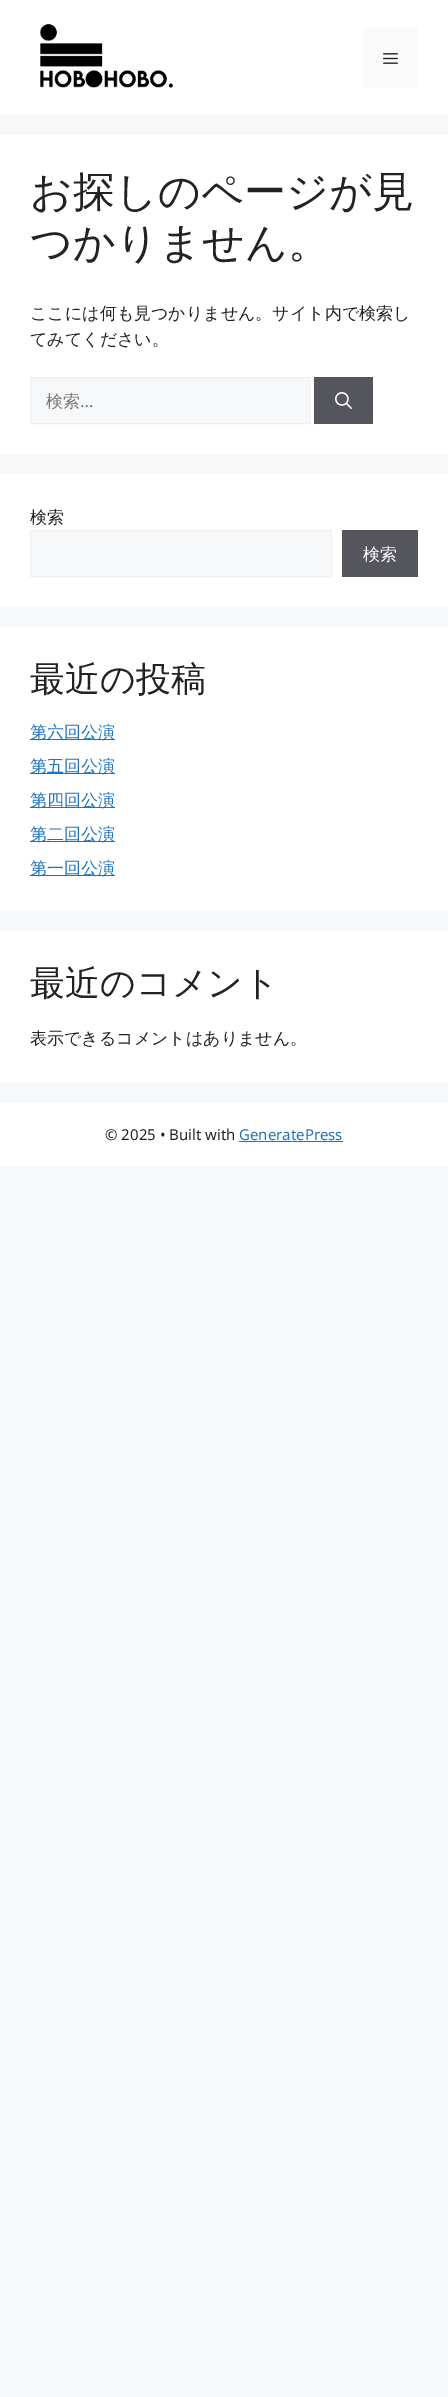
%!PS-Adobe-3.0
%%BoundingBox: 0 0 448 2397
%%LanguageLevel: 3
%%Pages: 1
%%EndComments
%%BeginProlog
/m { moveto } bind def
/l { lineto } bind def
/h { closepath } bind def
/f { fill } bind def
/S { stroke } bind def
/q { gsave } bind def
/Q { grestore } bind def
/fn { [ exch dup neg 0 0 3 -1 roll 0 0 ] selectfont } def
/tx { moveto show } def
/bx { rectfill } def
/im { 5 dict begin { /h /w /y /x /name } { exch def } forall
  gsave x y translate w h scale
  w h 8 [w 0 0 h 0 0] name (r) file false 3 colorimage grestore end } def
%%EndProlog
%%BeginSetup
<< /PageSize [448 2397] >> setpagedevice
%%EndSetup
%%Page: 1 1
0 2397 translate 1 -1 scale
4 setmiterlimit
0.969 0.973 0.976 setrgbcolor
0 0 448 2397 bx
1 setgray
0 0 448 115 bx
(image0.raw) 40 24 133 64 im
0.98 setgray
363 28 55 60 bx
(image1.raw) 383 53 15 11 im
1 setgray
0 135 448 319 bx
/WenQuanYiZenHei-Medium 42 fn
0.133 setgray
(お探しのページが見) 30 206 tx
(つかりません。) 30 257 tx
/WenQuanYiZenHei-Medium 17 fn
(ここには何も見つかりません。サイト内で検索し) 30 319 tx
(てみてください。) 30 345 tx
0.969 0.973 0.976 setrgbcolor
30.5 377.5 m 309.5 377.5 l 309.5 423.5 l 30.5 423.5 l h q f Q
0.941 setgray
S
0.459 setgray
(検索) 46 407 tx
/NotoSans-Regular 17 fn
(…) 80 407 tx
0.333 0.333 0.369 setrgbcolor
314 377 59 47 bx
(image2.raw) 335 392 17 17 im
1 setgray
0 474 448 133 bx
/WenQuanYiZenHei-Medium 17 fn
0.133 setgray
(検索) 30 523 tx
0.969 0.973 0.976 setrgbcolor
30.5 530.5 m 331.5 530.5 l 331.5 576.5 l 30.5 576.5 l h q f Q
0.941 setgray
S
0.333 0.333 0.369 setrgbcolor
342 530 76 47 bx
1 setgray
(検索) 363 560 tx
0 627 448 284 bx
/WenQuanYiZenHei-Medium 35 fn
0.133 setgray
(最近の投稿) 30 691 tx
0.118 0.451 0.745 setrgbcolor
30 739 85 1 bx
/WenQuanYiZenHei-Medium 17 fn
(第六回公演) 30 738 tx
30 773 85 1 bx
(第五回公演) 30 772 tx
30 807 85 1 bx
(第四回公演) 30 806 tx
30 841 85 1 bx
(第二回公演) 30 840 tx
30 875 85 1 bx
(第一回公演) 30 874 tx
1 setgray
0 931 448 152 bx
/WenQuanYiZenHei-Medium 35 fn
0.133 setgray
(最近のコメント) 30 995 tx
/WenQuanYiZenHei-Medium 17 fn
(表示できるコメントはありません。) 30 1044 tx
1 setgray
0 1103 448 63 bx
/NotoSans-Regular 15 fn
0.133 setgray
(© 2025 • Built with) 105 1140 tx
0.118 0.451 0.745 setrgbcolor
(GeneratePress) 239 1140 tx
239 1141 104 1 bx
showpage
%%EOF
